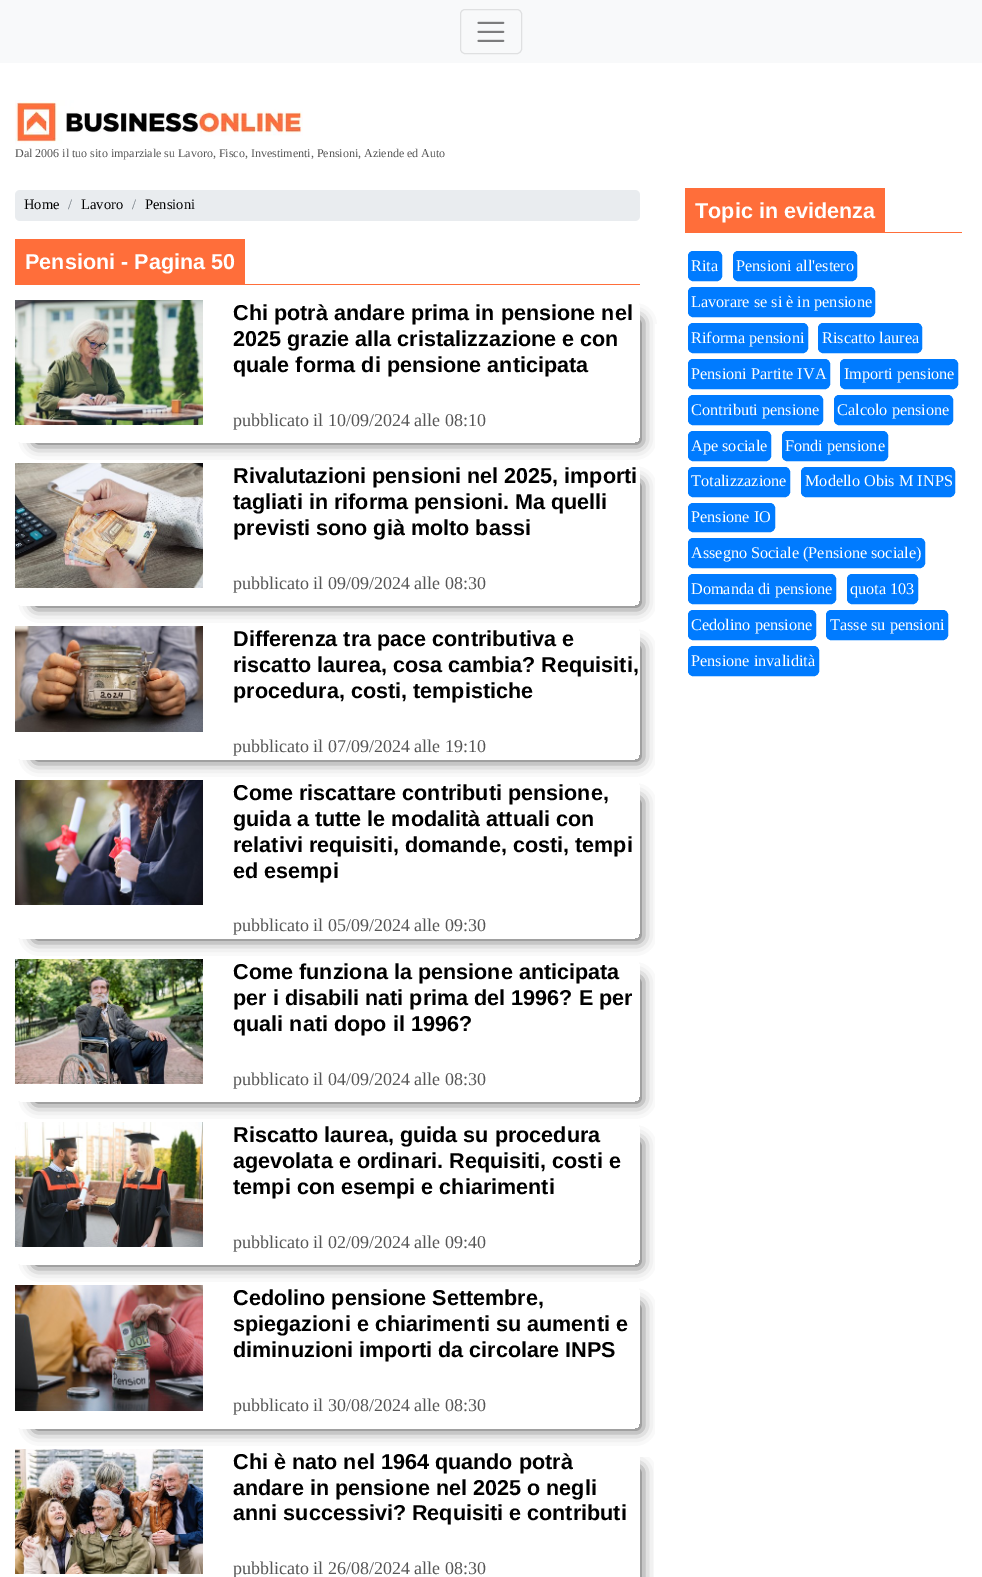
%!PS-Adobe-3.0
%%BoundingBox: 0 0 982 1577
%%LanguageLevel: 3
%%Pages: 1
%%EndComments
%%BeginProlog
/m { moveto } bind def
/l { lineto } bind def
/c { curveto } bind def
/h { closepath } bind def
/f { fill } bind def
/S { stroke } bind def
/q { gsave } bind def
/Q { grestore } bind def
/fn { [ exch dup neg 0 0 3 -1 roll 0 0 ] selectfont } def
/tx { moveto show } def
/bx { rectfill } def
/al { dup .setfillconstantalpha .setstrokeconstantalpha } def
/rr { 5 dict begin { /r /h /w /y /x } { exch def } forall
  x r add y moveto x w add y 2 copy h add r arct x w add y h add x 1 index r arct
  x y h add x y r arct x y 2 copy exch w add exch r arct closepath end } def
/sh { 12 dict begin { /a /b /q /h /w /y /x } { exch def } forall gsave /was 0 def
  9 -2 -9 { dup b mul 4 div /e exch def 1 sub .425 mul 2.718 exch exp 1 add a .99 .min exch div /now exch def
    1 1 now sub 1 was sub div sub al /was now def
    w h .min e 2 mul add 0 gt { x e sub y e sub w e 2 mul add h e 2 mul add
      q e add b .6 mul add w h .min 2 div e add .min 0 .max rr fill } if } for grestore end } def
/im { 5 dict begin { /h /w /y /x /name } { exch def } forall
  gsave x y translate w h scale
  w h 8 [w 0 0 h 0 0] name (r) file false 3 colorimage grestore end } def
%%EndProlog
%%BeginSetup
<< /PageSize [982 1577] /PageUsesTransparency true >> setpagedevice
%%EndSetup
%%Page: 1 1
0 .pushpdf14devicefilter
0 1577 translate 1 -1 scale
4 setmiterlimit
1 setgray
0 0 982 1577 bx
0.973 0.976 0.98 setrgbcolor
0 0 982 63 bx
0.875 0.878 0.882 setrgbcolor
460.5 9.5 61 44 4.5 rr S
(image0.raw) 477 21 28 21 im
(image1.raw) 15 100 288 44 im
/LiberationSerif-Regular 12 fn
0.333 setgray
(Dal 2006 il tuo sito imparziale su Lavoro, Fisco, Investimenti, Pensioni, Aziende ed Auto) 15 157 tx
0.914 0.925 0.937 setrgbcolor
15 190 625 31 5 rr f
/LiberationSerif-Regular 14.5 fn
0 setgray
(Home) 24 209 tx
0.424 0.459 0.49 setrgbcolor
(/) 68 209 tx
0 setgray
(Lavoro) 81 209 tx
0.424 0.459 0.49 setrgbcolor
(/) 132 209 tx
0 setgray
(Pensioni) 145 209 tx
1 0.431 0.227 setrgbcolor
15 284 625 1 bx
15 239 230 45 bx
/LiberationSans-Bold 21.6 fn
1 setgray
(Pensioni - Pagina 50) 25 269 tx
q
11 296 m 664 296 l 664 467 l 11 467 l h 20 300 m 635 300 l 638 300 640 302 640 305 c 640 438 l 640 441 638 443 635 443 c 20 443 l 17 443 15 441 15 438 c 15 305 l 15 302 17 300 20 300 c h eoclip newpath
0 setgray
35 320 605 123 0 7.5 0.75 sh
Q
(image2.raw) 15 300 188 125 im
0 setgray
(Chi potrà andare prima in pensione nel) 233 320 tx
(2025 grazie alla cristalizzazione e con) 233 346 tx
(quale forma di pensione anticipata) 233 372 tx
/LiberationSerif-Regular 18 fn
0.333 setgray
(pubblicato il 10/09/2024 alle 08:10) 233 426 tx
q
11 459 m 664 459 l 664 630 l 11 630 l h 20 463 m 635 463 l 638 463 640 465 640 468 c 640 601 l 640 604 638 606 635 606 c 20 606 l 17 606 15 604 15 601 c 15 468 l 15 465 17 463 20 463 c h eoclip newpath
0 setgray
35 483 605 123 0 7.5 0.75 sh
Q
(image3.raw) 15 463 188 125 im
/LiberationSans-Bold 21.6 fn
0 setgray
(Rivalutazioni pensioni nel 2025, importi) 233 483 tx
(tagliati in riforma pensioni. Ma quelli) 233 509 tx
(previsti sono già molto bassi) 233 535 tx
/LiberationSerif-Regular 18 fn
0.333 setgray
(pubblicato il 09/09/2024 alle 08:30) 233 589 tx
q
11 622 m 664 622 l 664 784 l 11 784 l h 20 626 m 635 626 l 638 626 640 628 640 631 c 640 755 l 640 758 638 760 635 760 c 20 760 l 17 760 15 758 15 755 c 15 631 l 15 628 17 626 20 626 c h eoclip newpath
0 setgray
35 646 605 114 0 7.5 0.75 sh
Q
(image4.raw) 15 626 188 106 im
/LiberationSans-Bold 21.6 fn
0 setgray
(Differenza tra pace contributiva e) 233 646 tx
(riscatto laurea, cosa cambia? Requisiti,) 233 672 tx
(procedura, costi, tempistiche) 233 698 tx
/LiberationSerif-Regular 18 fn
0.333 setgray
(pubblicato il 07/09/2024 alle 19:10) 233 752 tx
q
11 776 m 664 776 l 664 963 l 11 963 l h 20 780 m 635 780 l 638 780 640 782 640 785 c 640 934 l 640 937 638 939 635 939 c 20 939 l 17 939 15 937 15 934 c 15 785 l 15 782 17 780 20 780 c h eoclip newpath
0 setgray
35 800 605 139 0 7.5 0.75 sh
Q
(image5.raw) 15 780 188 125 im
/LiberationSans-Bold 21.6 fn
0 setgray
(Come riscattare contributi pensione,) 233 800 tx
(guida a tutte le modalità attuali con) 233 826 tx
(relativi requisiti, domande, costi, tempi) 233 852 tx
(ed esempi) 233 878 tx
/LiberationSerif-Regular 18 fn
0.333 setgray
(pubblicato il 05/09/2024 alle 09:30) 233 931 tx
q
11 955 m 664 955 l 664 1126 l 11 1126 l h 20 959 m 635 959 l 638 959 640 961 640 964 c 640 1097 l 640 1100 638 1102 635 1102 c 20 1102 l 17 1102 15 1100 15 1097 c 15 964 l 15 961 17 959 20 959 c h eoclip newpath
0 setgray
35 979 605 123 0 7.5 0.75 sh
Q
(image6.raw) 15 959 188 125 im
/LiberationSans-Bold 21.6 fn
0 setgray
(Come funziona la pensione anticipata) 233 979 tx
(per i disabili nati prima del 1996? E per) 233 1005 tx
(quali nati dopo il 1996?) 233 1031 tx
/LiberationSerif-Regular 18 fn
0.333 setgray
(pubblicato il 04/09/2024 alle 08:30) 233 1085 tx
q
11 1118 m 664 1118 l 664 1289 l 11 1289 l h 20 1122 m 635 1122 l 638 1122 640 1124 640 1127 c 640 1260 l 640 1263 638 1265 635 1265 c 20 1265 l 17 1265 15 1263 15 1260 c 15 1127 l 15 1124 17 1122 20 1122 c h eoclip newpath
0 setgray
35 1142 605 123 0 7.5 0.75 sh
Q
(image7.raw) 15 1122 188 125 im
/LiberationSans-Bold 21.6 fn
0 setgray
(Riscatto laurea, guida su procedura) 233 1142 tx
(agevolata e ordinari. Requisiti, costi e) 233 1168 tx
(tempi con esempi e chiarimenti) 233 1194 tx
/LiberationSerif-Regular 18 fn
0.333 setgray
(pubblicato il 02/09/2024 alle 09:40) 233 1248 tx
q
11 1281 m 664 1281 l 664 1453 l 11 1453 l h 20 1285 m 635 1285 l 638 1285 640 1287 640 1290 c 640 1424 l 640 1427 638 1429 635 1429 c 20 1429 l 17 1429 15 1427 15 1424 c 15 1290 l 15 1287 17 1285 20 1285 c h eoclip newpath
0 setgray
35 1305 605 124 0 7.5 0.75 sh
Q
(image8.raw) 15 1285 188 126 im
/LiberationSans-Bold 21.6 fn
0 setgray
(Cedolino pensione Settembre,) 233 1305 tx
(spiegazioni e chiarimenti su aumenti e) 233 1331 tx
(diminuzioni importi da circolare INPS) 233 1357 tx
/LiberationSerif-Regular 18 fn
0.333 setgray
(pubblicato il 30/08/2024 alle 08:30) 233 1411 tx
q
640 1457 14 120 rectclip
0 setgray
35 1469 605 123 0 7.5 0.75 sh
Q
(image9.raw) 15 1449 188 125 im
/LiberationSans-Bold 21.6 fn
0 setgray
(Chi è nato nel 1964 quando potrà) 233 1469 tx
(andare in pensione nel 2025 o negli) 233 1495 tx
(anni successivi? Requisiti e contributi) 233 1520 tx
/LiberationSerif-Regular 18 fn
0.333 setgray
(pubblicato il 26/08/2024 alle 08:30) 233 1574 tx
1 setgray
655 324 2 1253 bx
1 0.431 0.227 setrgbcolor
885 232 77 1 bx
685 188 200 45 bx
/LiberationSans-Bold 21.6 fn
1 setgray
(Topic in evidenza) 695 218 tx
0 0.482 1 setrgbcolor
688.5 251.5 33 29 4.5 rr q f Q
S
/LiberationSerif-Regular 16.25 fn
1 setgray
(Rita) 691 271 tx
0 0.482 1 setrgbcolor
733.5 251.5 123 29 4.5 rr q f Q
S
1 setgray
(Pensioni all'estero) 736 271 tx
0 0.482 1 setrgbcolor
688.5 287.5 186 29 4.5 rr q f Q
S
1 setgray
(Lavorare se si è in pensione) 691 307 tx
0 0.482 1 setrgbcolor
688.5 323.5 119 29 4.5 rr q f Q
S
1 setgray
(Riforma pensioni) 691 343 tx
0 0.482 1 setrgbcolor
818.5 323.5 103 29 4.5 rr q f Q
S
1 setgray
(Riscatto laurea) 822 343 tx
0 0.482 1 setrgbcolor
688.5 359.5 141 29 4.5 rr q f Q
S
1 setgray
(Pensioni Partite IVA) 691 379 tx
0 0.482 1 setrgbcolor
840.5 359.5 117 29 4.5 rr q f Q
S
1 setgray
(Importi pensione) 844 379 tx
0 0.482 1 setrgbcolor
688.5 395.5 134 29 4.5 rr q f Q
S
1 setgray
(Contributi pensione) 691 415 tx
0 0.482 1 setrgbcolor
834.5 395.5 118 29 4.5 rr q f Q
S
1 setgray
(Calcolo pensione) 837 415 tx
0 0.482 1 setrgbcolor
688.5 431.5 82 29 4.5 rr q f Q
S
1 setgray
(Ape sociale) 691 451 tx
0 0.482 1 setrgbcolor
782.5 431.5 105 29 4.5 rr q f Q
S
1 setgray
(Fondi pensione) 785 451 tx
0 0.482 1 setrgbcolor
688.5 467.5 101 29 4.5 rr q f Q
S
1 setgray
(Totalizzazione) 691 486 tx
0 0.482 1 setrgbcolor
801.5 467.5 153 29 4.5 rr q f Q
S
1 setgray
(Modello Obis M INPS) 805 486 tx
0 0.482 1 setrgbcolor
688.5 503.5 86 28 4.5 rr q f Q
S
1 setgray
(Pensione IO) 691 522 tx
0 0.482 1 setrgbcolor
688.5 538.5 236 29 4.5 rr q f Q
S
1 setgray
(Assegno Sociale \(Pensione sociale\)) 691 558 tx
0 0.482 1 setrgbcolor
688.5 574.5 147 29 4.5 rr q f Q
S
1 setgray
(Domanda di pensione) 691 594 tx
0 0.482 1 setrgbcolor
847.5 574.5 70 29 4.5 rr q f Q
S
1 setgray
(quota 103) 850 594 tx
0 0.482 1 setrgbcolor
688.5 610.5 127 29 4.5 rr q f Q
S
1 setgray
(Cedolino pensione) 691 630 tx
0 0.482 1 setrgbcolor
826.5 610.5 121 29 4.5 rr q f Q
S
1 setgray
(Tasse su pensioni) 830 630 tx
0 0.482 1 setrgbcolor
688.5 646.5 130 29 4.5 rr q f Q
S
1 setgray
(Pensione invalidità) 691 666 tx
.poppdf14devicefilter showpage
%%EOF
